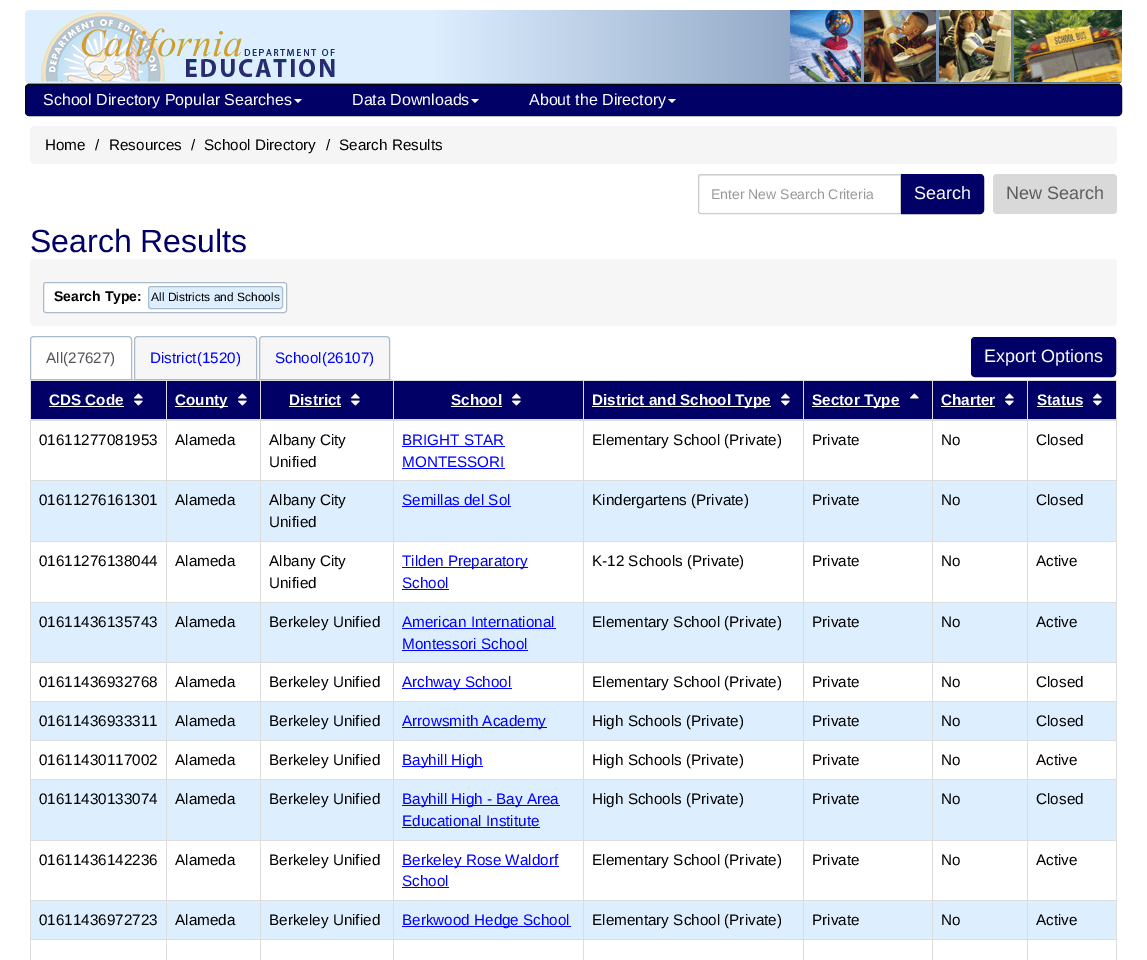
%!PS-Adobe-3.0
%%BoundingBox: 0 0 1147 960
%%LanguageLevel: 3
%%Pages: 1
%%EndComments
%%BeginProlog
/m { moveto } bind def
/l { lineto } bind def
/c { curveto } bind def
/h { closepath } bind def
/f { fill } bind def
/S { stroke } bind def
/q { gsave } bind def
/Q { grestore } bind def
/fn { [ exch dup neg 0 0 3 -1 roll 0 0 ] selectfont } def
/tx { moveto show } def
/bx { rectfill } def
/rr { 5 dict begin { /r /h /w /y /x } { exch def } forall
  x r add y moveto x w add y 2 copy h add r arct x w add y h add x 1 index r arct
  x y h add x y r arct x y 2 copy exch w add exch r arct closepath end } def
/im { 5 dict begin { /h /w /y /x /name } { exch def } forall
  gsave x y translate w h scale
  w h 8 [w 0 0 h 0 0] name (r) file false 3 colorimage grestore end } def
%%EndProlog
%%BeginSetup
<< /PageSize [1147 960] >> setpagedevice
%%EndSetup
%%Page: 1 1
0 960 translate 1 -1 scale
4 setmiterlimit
1 setgray
0 0 1147 960 bx
q 25 10 1097 74 5 rr clip newpath
<< /ShadingType 2 /ColorSpace /DeviceRGB /Coords [25 47 1122 46] /Extend [true true] /Function << /FunctionType 3 /Domain [0 1] /Functions [<< /FunctionType 2 /Domain [0 1] /C0 [0.867 0.933 1] /C1 [0.867 0.933 1] /N 1 >> << /FunctionType 2 /Domain [0 1] /C0 [0.867 0.933 1] /C1 [0.867 0.933 1] /N 1 >> << /FunctionType 2 /Domain [0 1] /C0 [0.867 0.933 1] /C1 [0.31 0.416 0.573] /N 1 >>] /Bounds [0.01 0.37] /Encode [0 1 0 1 0 1] >> >> shfill Q
0.4 0.6 0.8 setrgbcolor
28 83 1092 1 bx
(image0.raw) 41 12 294 70 im
(image1.raw) 790 10 332 72 im
0 0 0.4 setrgbcolor
25.5 84.5 1096 31 3.5 rr q f Q
0.031 setgray
S
/LiberationSans-Regular 16 fn
1 setgray
(School Directory Popular Searches) 43 105 tx
294 99 m 302 99 l 298 103 l h f
(Data Downloads) 352 105 tx
471 99 m 479 99 l 475 103 l h f
(About the Directory) 529 105 tx
668 99 m 676 99 l 672 103 l h f
0.961 setgray
30 126 1087 38 5 rr f
/LiberationSans-Regular 15.25 fn
0 setgray
(Home) 45 150 tx
(/) 95 150 tx
(Resources) 109 150 tx
(/) 191 150 tx
(School Directory) 204 150 tx
(/) 326 150 tx
(Search Results) 339 150 tx
0.925 setgray
701 176 m 900 176 l 900 175 l 701 175 l 699 175 699 177 699 178 c 699 177 700 176 701 176 c h f
0.8 setgray
701 174.5 m 900.5 174.5 l 900.5 213.5 l 701 213.5 l 699.5 213.5 698.5 212.5 698.5 211 c 698.5 177 l 698.5 175.5 699.5 174.5 701 174.5 c h S
/LiberationSans-Regular 14 fn
0.6 setgray
(Enter New Search Criteria) 711 199 tx
0 0 0.4 setrgbcolor
901.5 174.5 m 980 174.5 l 982 174.5 983.5 176 983.5 178 c 983.5 210 l 983.5 212 982 213.5 980 213.5 c 901.5 213.5 l h q f Q
S
/LiberationSans-Regular 18 fn
1 setgray
(Search) 914 199 tx
0.851 setgray
993 174 124 40 4 rr f
0.369 setgray
(New Search) 1006 199 tx
/LiberationSans-Regular 32 fn
0 0 0.4 setrgbcolor
(Search Results) 30 252 tx
0.965 setgray
30 259 1087 67 4 rr f
1 setgray
43.5 282.5 243 30 2.5 rr q f Q
0.667 0.733 0.8 setrgbcolor
S
/LiberationSans-Bold 14 fn
0 setgray
(Search Type:) 54 301 tx
0.867 0.933 1 setrgbcolor
148.5 286.5 134 22 2.5 rr q f Q
0.667 0.733 0.8 setrgbcolor
S
/LiberationSans-Regular 12 fn
0 setgray
(All Districts and Schools) 151 301 tx
0.867 setgray
132 379 260 1 bx
0.667 0.733 0.8 setrgbcolor
34 336.5 m 128 336.5 l 130 336.5 131.5 338 131.5 340 c 131.5 379.5 l 30.5 379.5 l 30.5 340 l 30.5 338 32 336.5 34 336.5 c h S
/LiberationSans-Regular 15.25 fn
0.333 setgray
(All\(27627\)) 46 363 tx
0.965 setgray
138 336.5 m 253 336.5 l 255 336.5 256.5 338 256.5 340 c 256.5 379.5 l 134.5 379.5 l 134.5 340 l 134.5 338 136 336.5 138 336.5 c h q f Q
0.667 0.733 0.8 setrgbcolor
S
0 0 1 setrgbcolor
(District\(1520\)) 150 363 tx
0.965 setgray
263 336.5 m 386 336.5 l 388 336.5 389.5 338 389.5 340 c 389.5 379.5 l 259.5 379.5 l 259.5 340 l 259.5 338 261 336.5 263 336.5 c h q f Q
0.667 0.733 0.8 setrgbcolor
S
0 0 1 setrgbcolor
(School\(26107\)) 275 363 tx
0 0 0.4 setrgbcolor
971.5 337.5 144 39 3.5 rr q f Q
S
/LiberationSans-Regular 18 fn
1 setgray
(Export Options) 984 362 tx
0.867 setgray
30 380 1087 1 bx
1116 380 1 580 bx
30 380 1 580 bx
0 0 0.4 setrgbcolor
31 381 135 38 bx
/LiberationSans-Bold 15.25 fn
1 setgray
(CDS Code) 49 405 tx
49 406 75 1 bx
(image2.raw) 134 393 9 13 im
0 0 0.4 setrgbcolor
167 381 93 38 bx
1 setgray
175 406 53 1 bx
(County) 175 405 tx
(image2.raw) 238 393 9 13 im
0 0 0.4 setrgbcolor
261 381 132 38 bx
1 setgray
(District) 289 405 tx
289 406 52 1 bx
(image2.raw) 351 393 9 13 im
0 0 0.4 setrgbcolor
394 381 189 38 bx
1 setgray
(School) 451 405 tx
451 406 51 1 bx
(image2.raw) 512 393 9 13 im
0 0 0.4 setrgbcolor
584 381 219 38 bx
1 setgray
592 406 179 1 bx
(District and School Type) 592 405 tx
(image2.raw) 781 393 9 13 im
0 0 0.4 setrgbcolor
804 381 128 38 bx
1 setgray
812 406 88 1 bx
(Sector Type) 812 405 tx
(image3.raw) 910 393 9 6 im
0 0 0.4 setrgbcolor
933 381 94 38 bx
1 setgray
(Charter) 941 405 tx
941 406 54 1 bx
(image2.raw) 1005 393 9 13 im
0 0 0.4 setrgbcolor
1028 381 88 38 bx
0.867 setgray
1027 480 90 1 bx
0.867 0.933 1 setrgbcolor
31 481 1085 60 bx
0.867 setgray
1027 541 90 1 bx
1027 602 90 1 bx
0.867 0.933 1 setrgbcolor
31 603 1085 59 bx
0.867 setgray
1027 662 90 1 bx
1027 701 90 1 bx
0.867 0.933 1 setrgbcolor
31 702 1085 38 bx
0.867 setgray
1027 740 90 1 bx
1027 779 90 1 bx
0.867 0.933 1 setrgbcolor
31 780 1085 60 bx
0.867 setgray
1027 840 90 1 bx
1027 900 90 1 bx
0.867 0.933 1 setrgbcolor
31 901 1085 38 bx
0.867 setgray
1027 939 90 1 bx
1027 939 1 21 bx
932 939 96 1 bx
1027 900 1 40 bx
932 900 96 1 bx
1027 840 1 61 bx
932 840 96 1 bx
1027 779 1 62 bx
932 779 96 1 bx
1027 740 1 40 bx
932 740 96 1 bx
1027 701 1 40 bx
932 701 96 1 bx
1027 662 1 40 bx
932 662 96 1 bx
1027 602 1 61 bx
932 602 96 1 bx
1027 541 1 62 bx
932 541 96 1 bx
1027 480 1 62 bx
932 480 96 1 bx
932 939 1 21 bx
803 939 130 1 bx
932 900 1 40 bx
803 900 130 1 bx
932 840 1 61 bx
803 840 130 1 bx
932 779 1 62 bx
803 779 130 1 bx
932 740 1 40 bx
803 740 130 1 bx
932 701 1 40 bx
803 701 130 1 bx
932 662 1 40 bx
803 662 130 1 bx
932 602 1 61 bx
803 602 130 1 bx
932 541 1 62 bx
803 541 130 1 bx
932 480 1 62 bx
803 480 130 1 bx
803 939 1 21 bx
583 939 221 1 bx
803 900 1 40 bx
583 900 221 1 bx
803 840 1 61 bx
583 840 221 1 bx
803 779 1 62 bx
583 779 221 1 bx
803 740 1 40 bx
583 740 221 1 bx
803 701 1 40 bx
583 701 221 1 bx
803 662 1 40 bx
583 662 221 1 bx
803 602 1 61 bx
583 602 221 1 bx
803 541 1 62 bx
583 541 221 1 bx
803 480 1 62 bx
583 480 221 1 bx
583 939 1 21 bx
393 939 191 1 bx
583 900 1 40 bx
393 900 191 1 bx
583 840 1 61 bx
393 840 191 1 bx
583 779 1 62 bx
393 779 191 1 bx
583 740 1 40 bx
393 740 191 1 bx
583 701 1 40 bx
393 701 191 1 bx
583 662 1 40 bx
393 662 191 1 bx
583 602 1 61 bx
393 602 191 1 bx
583 541 1 62 bx
393 541 191 1 bx
583 480 1 62 bx
393 480 191 1 bx
393 939 1 21 bx
260 939 134 1 bx
393 900 1 40 bx
260 900 134 1 bx
393 840 1 61 bx
260 840 134 1 bx
393 779 1 62 bx
260 779 134 1 bx
393 740 1 40 bx
260 740 134 1 bx
393 701 1 40 bx
260 701 134 1 bx
393 662 1 40 bx
260 662 134 1 bx
393 602 1 61 bx
260 602 134 1 bx
393 541 1 62 bx
260 541 134 1 bx
393 480 1 62 bx
260 480 134 1 bx
260 939 1 21 bx
166 939 95 1 bx
260 900 1 40 bx
166 900 95 1 bx
260 840 1 61 bx
166 840 95 1 bx
260 779 1 62 bx
166 779 95 1 bx
260 740 1 40 bx
166 740 95 1 bx
260 701 1 40 bx
166 701 95 1 bx
260 662 1 40 bx
166 662 95 1 bx
260 602 1 61 bx
166 602 95 1 bx
260 541 1 62 bx
166 541 95 1 bx
260 480 1 62 bx
166 480 95 1 bx
166 939 1 21 bx
30 939 137 1 bx
166 900 1 40 bx
30 900 137 1 bx
166 840 1 61 bx
30 840 137 1 bx
166 779 1 62 bx
30 779 137 1 bx
166 740 1 40 bx
30 740 137 1 bx
166 701 1 40 bx
30 701 137 1 bx
166 662 1 40 bx
30 662 137 1 bx
166 602 1 61 bx
30 602 137 1 bx
166 541 1 62 bx
30 541 137 1 bx
166 480 1 62 bx
30 480 137 1 bx
166 380 1 101 bx
260 380 1 101 bx
393 380 1 101 bx
583 380 1 101 bx
803 380 1 101 bx
932 380 1 101 bx
1027 380 1 101 bx
30 419 1087 2 bx
1 setgray
(Status) 1037 405 tx
1037 406 46 1 bx
(image2.raw) 1093 393 9 13 im
/LiberationSans-Regular 15.25 fn
0 setgray
(01611277081953) 39 445 tx
(Alameda) 175 445 tx
(Albany City) 269 445 tx
(Unified) 269 467 tx
0 0 1 setrgbcolor
(BRIGHT STAR) 402 445 tx
402 446 103 1 bx
(MONTESSORI) 402 467 tx
402 468 103 1 bx
0 setgray
(Elementary School \(Private\)) 592 445 tx
(Private) 812 445 tx
(No) 941 445 tx
(Closed) 1036 445 tx
(01611276161301) 39 505 tx
(Alameda) 175 505 tx
(Albany City) 269 505 tx
(Unified) 269 527 tx
0 0 1 setrgbcolor
(Semillas del Sol) 402 505 tx
402 506 109 1 bx
0 setgray
(Kindergartens \(Private\)) 592 505 tx
(Private) 812 505 tx
(No) 941 505 tx
(Closed) 1036 505 tx
(01611276138044) 39 566 tx
(Alameda) 175 566 tx
(Albany City) 269 566 tx
(Unified) 269 588 tx
0 0 1 setrgbcolor
402 567 126 1 bx
(Tilden Preparatory) 402 566 tx
(School) 402 588 tx
402 589 47 1 bx
0 setgray
(K-12 Schools \(Private\)) 592 566 tx
(Private) 812 566 tx
(No) 941 566 tx
(Active) 1036 566 tx
(01611436135743) 39 627 tx
(Alameda) 175 627 tx
(Berkeley Unified) 269 627 tx
0 0 1 setrgbcolor
(American International) 402 627 tx
402 628 154 1 bx
(Montessori School) 402 649 tx
402 650 126 1 bx
0 setgray
(Elementary School \(Private\)) 592 627 tx
(Private) 812 627 tx
(No) 941 627 tx
(Active) 1036 627 tx
(01611436932768) 39 687 tx
(Alameda) 175 687 tx
(Berkeley Unified) 269 687 tx
0 0 1 setrgbcolor
402 688 110 1 bx
(Archway School) 402 687 tx
0 setgray
(Elementary School \(Private\)) 592 687 tx
(Private) 812 687 tx
(No) 941 687 tx
(Closed) 1036 687 tx
(01611436933311) 39 726 tx
(Alameda) 175 726 tx
(Berkeley Unified) 269 726 tx
0 0 1 setrgbcolor
402 727 145 1 bx
(Arrowsmith Academy) 402 726 tx
0 setgray
(High Schools \(Private\)) 592 726 tx
(Private) 812 726 tx
(No) 941 726 tx
(Closed) 1036 726 tx
(01611430117002) 39 765 tx
(Alameda) 175 765 tx
(Berkeley Unified) 269 765 tx
0 0 1 setrgbcolor
402 766 81 1 bx
(Bayhill High) 402 765 tx
0 setgray
(High Schools \(Private\)) 592 765 tx
(Private) 812 765 tx
(No) 941 765 tx
(Active) 1036 765 tx
(01611430133074) 39 804 tx
(Alameda) 175 804 tx
(Berkeley Unified) 269 804 tx
0 0 1 setrgbcolor
402 805 158 1 bx
(Bayhill High - Bay Area) 402 804 tx
(Educational Institute) 402 826 tx
402 827 138 1 bx
0 setgray
(High Schools \(Private\)) 592 804 tx
(Private) 812 804 tx
(No) 941 804 tx
(Closed) 1036 804 tx
(01611436142236) 39 865 tx
(Alameda) 175 865 tx
(Berkeley Unified) 269 865 tx
0 0 1 setrgbcolor
402 866 157 1 bx
(Berkeley Rose Waldorf) 402 865 tx
(School) 402 886 tx
402 887 47 1 bx
0 setgray
(Elementary School \(Private\)) 592 865 tx
(Private) 812 865 tx
(No) 941 865 tx
(Active) 1036 865 tx
(01611436972723) 39 925 tx
(Alameda) 175 925 tx
(Berkeley Unified) 269 925 tx
0 0 1 setrgbcolor
402 926 169 1 bx
(Berkwood Hedge School) 402 925 tx
0 setgray
(Elementary School \(Private\)) 592 925 tx
(Private) 812 925 tx
(No) 941 925 tx
(Active) 1036 925 tx
showpage
%%EOF
